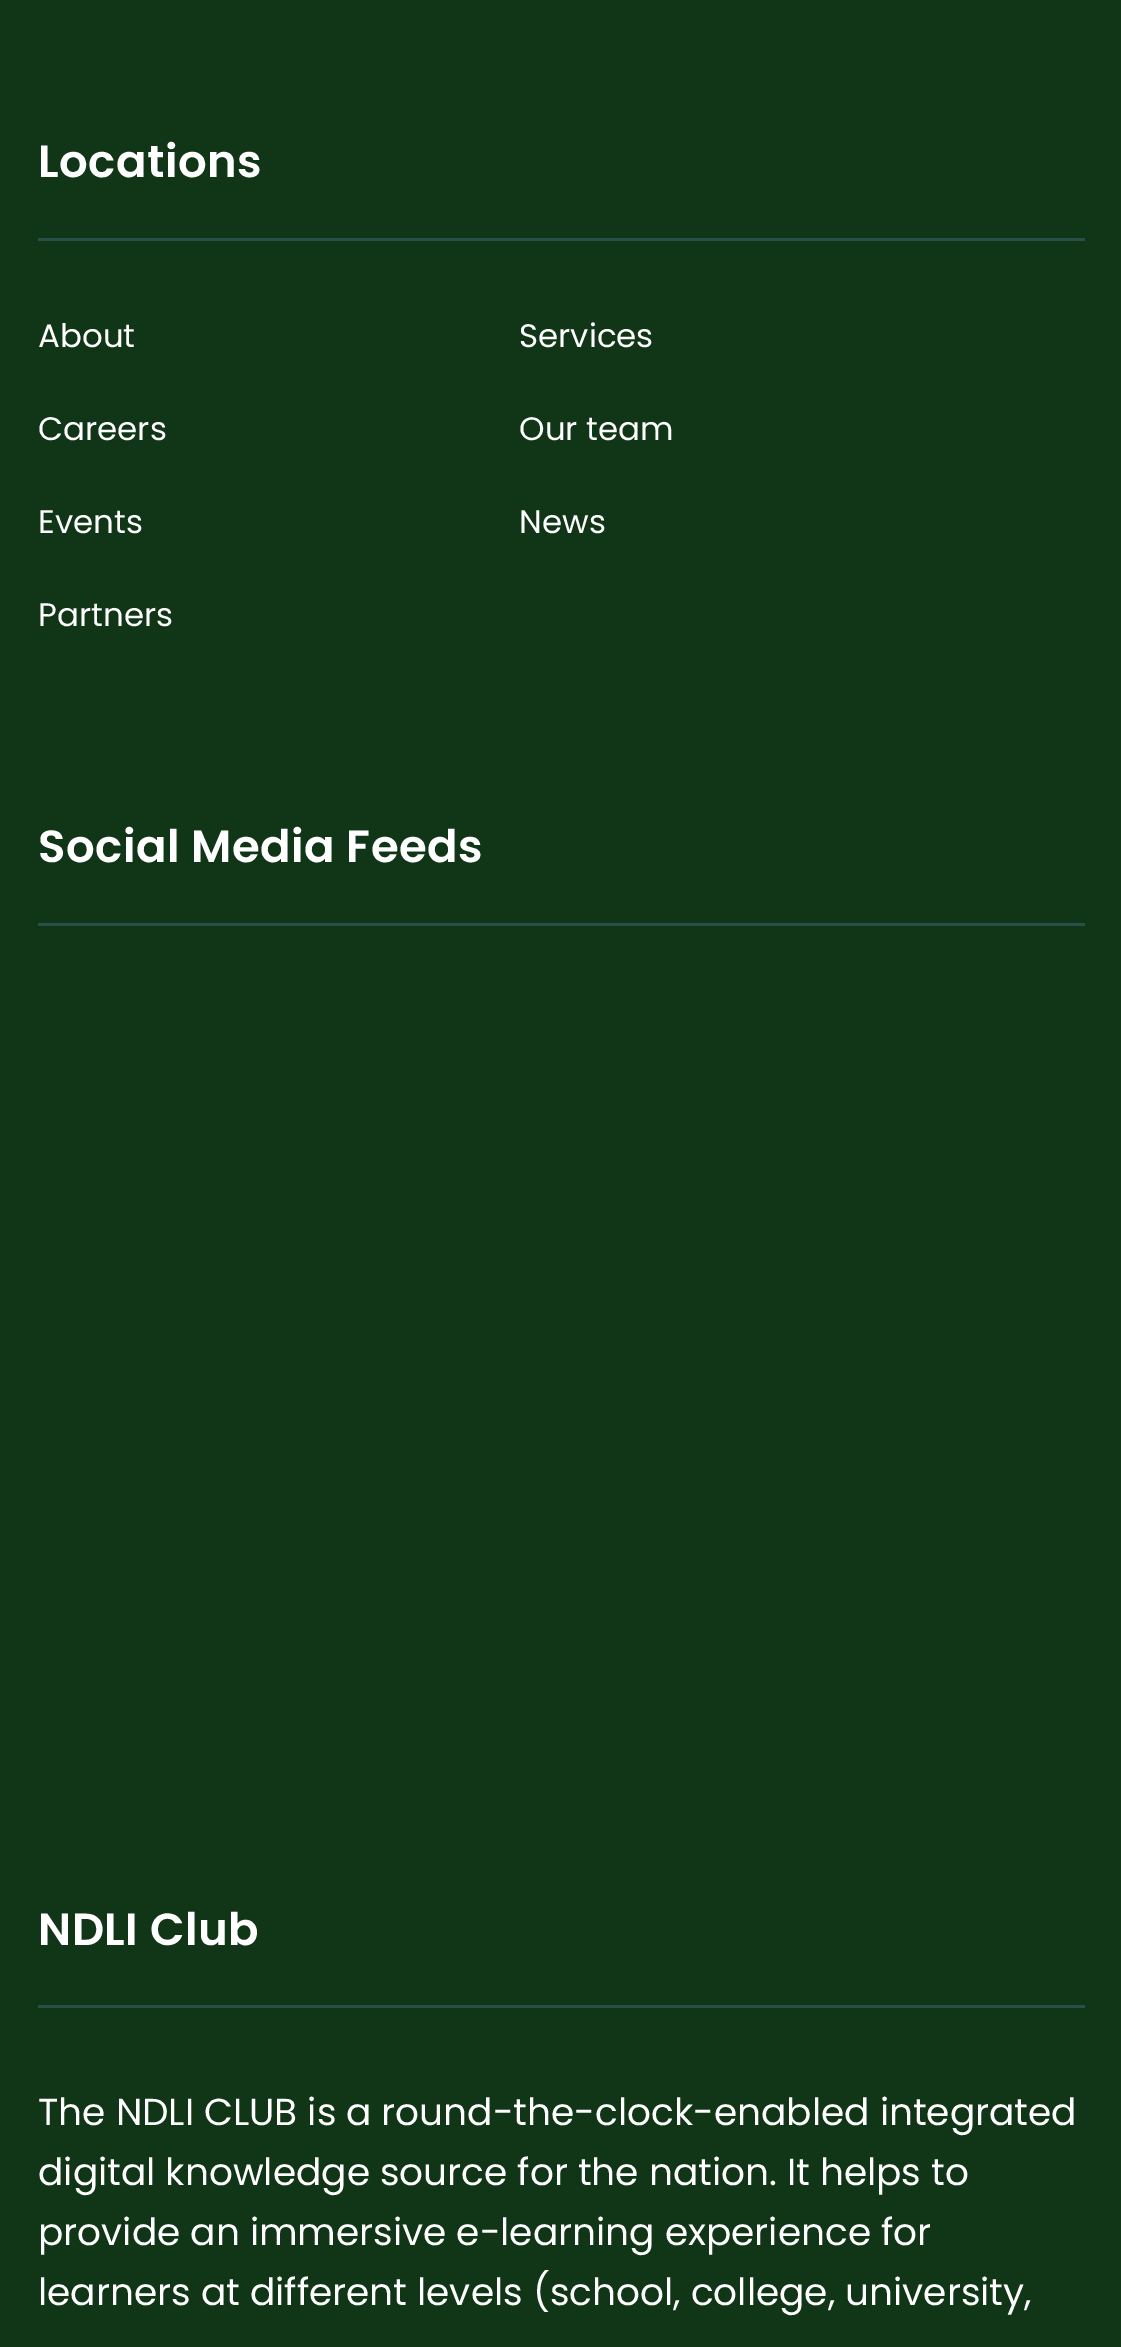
%!PS-Adobe-3.0
%%BoundingBox: 0 0 1121 2347
%%LanguageLevel: 3
%%Pages: 1
%%EndComments
%%BeginProlog
/m { moveto } bind def
/fn { [ exch dup neg 0 0 3 -1 roll 0 0 ] selectfont } def
/tx { moveto show } def
/bx { rectfill } def
%%EndProlog
%%BeginSetup
<< /PageSize [1121 2347] >> setpagedevice
%%EndSetup
%%Page: 1 1
0 2347 translate 1 -1 scale
4 setmiterlimit
0.067 0.212 0.09 setrgbcolor
0 0 1121 2347 bx
0.157 0.31 0.29 setrgbcolor
38 238 1047 3 bx
/Poppins-SemiBold 45 fn
1 setgray
38 177 m 0.5 0 (Locations) ashow
/Poppins-Regular 32.5 fn
(About) 38 347 tx
(Services) 519 347 tx
(Careers) 38 440 tx
(Our team) 519 440 tx
(Events) 38 533 tx
(News) 519 533 tx
(Partners) 38 626 tx
0.157 0.31 0.29 setrgbcolor
38 923 1047 3 bx
/Poppins-SemiBold 45 fn
1 setgray
38 862 m 0.5 0 (Social Media Feeds) ashow
0.157 0.31 0.29 setrgbcolor
38 2005 1047 3 bx
1 setgray
38 1945 m 0.5 0 (NDLI Club) ashow
/Poppins-Regular 37.5 fn
(The NDLI CLUB is a round-the-clock-enabled integrated) 38 2125 tx
(digital knowledge source for the nation. It helps to) 38 2185 tx
(provide an immersive e-learning experience for) 38 2245 tx
(learners at different levels \(school, college, university,) 38 2305 tx
showpage
%%EOF
